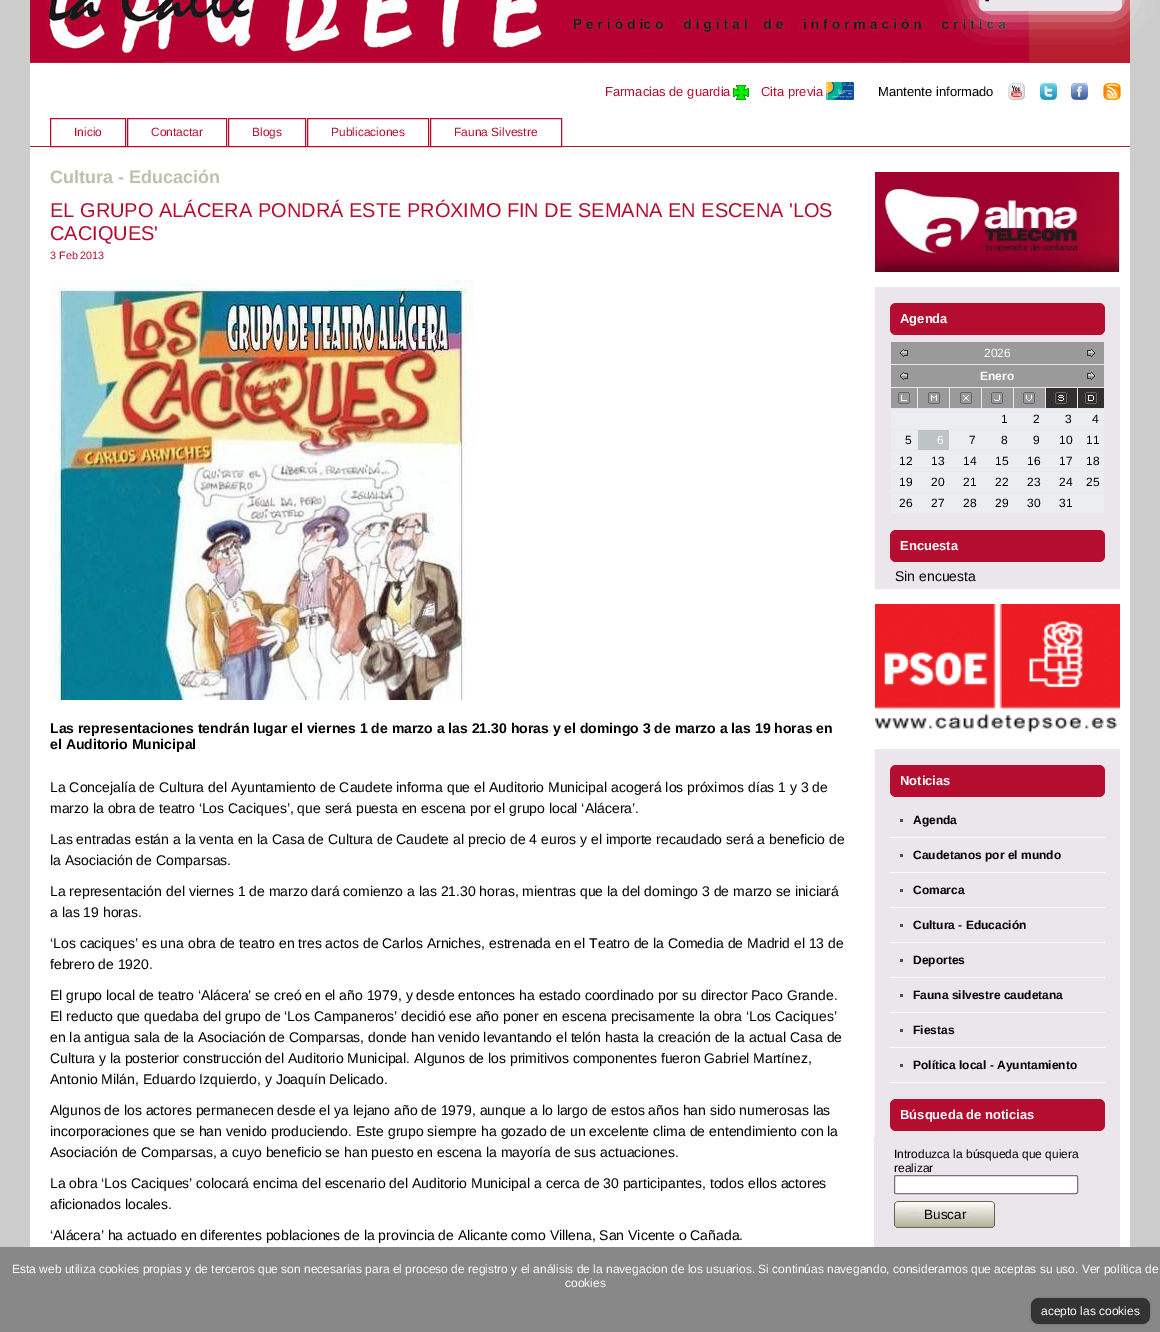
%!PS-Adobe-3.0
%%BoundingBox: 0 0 1160 1332
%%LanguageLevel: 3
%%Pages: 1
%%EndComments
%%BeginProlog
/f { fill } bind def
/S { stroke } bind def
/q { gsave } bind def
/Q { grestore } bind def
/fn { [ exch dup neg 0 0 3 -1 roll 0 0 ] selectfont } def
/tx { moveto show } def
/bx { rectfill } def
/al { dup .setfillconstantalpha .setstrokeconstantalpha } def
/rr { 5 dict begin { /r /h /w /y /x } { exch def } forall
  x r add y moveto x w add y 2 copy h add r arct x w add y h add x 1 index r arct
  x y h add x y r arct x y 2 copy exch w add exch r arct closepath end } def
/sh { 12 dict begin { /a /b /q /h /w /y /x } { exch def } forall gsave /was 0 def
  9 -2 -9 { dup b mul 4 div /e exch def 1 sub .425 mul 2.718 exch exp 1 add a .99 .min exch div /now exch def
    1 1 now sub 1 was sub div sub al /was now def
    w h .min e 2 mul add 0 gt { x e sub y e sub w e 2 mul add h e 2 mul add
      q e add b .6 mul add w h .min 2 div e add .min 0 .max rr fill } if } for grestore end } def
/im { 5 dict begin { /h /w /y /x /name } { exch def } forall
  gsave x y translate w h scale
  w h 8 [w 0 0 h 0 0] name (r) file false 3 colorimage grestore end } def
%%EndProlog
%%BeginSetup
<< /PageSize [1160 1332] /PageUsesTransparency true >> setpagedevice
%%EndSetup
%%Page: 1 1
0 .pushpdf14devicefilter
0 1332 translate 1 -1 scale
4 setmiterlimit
0.8 setgray
0 0 1160 1332 bx
1 setgray
30 63 1100 1184 bx
0.718 0.122 0.18 setrgbcolor
1029 0 101 63 bx
0.682 0.11 0.196 setrgbcolor
30 146 1100 1 bx
(image0.raw) 30 0 999 63 im
1 setgray
979 -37 143 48 6 15 1 sh
0.922 0.902 0.925 setrgbcolor
979 -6 143 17 6 rr f
/LiberationSans-Bold 14 fn
0 setgray
(-) 985 4 tx
/LiberationSans-Regular 13 fn
0.71 0.051 0.184 setrgbcolor
(Farmacias de guardia) 605 96 tx
(image1.raw) 733 85 16 15 im
(Cita previa) 761 96 tx
(image2.raw) 826 82 28 18 im
0 setgray
(Mantente informado) 878 96 tx
(image3.raw) 1008 83 17 17 im
(image4.raw) 1040 83 17 17 im
(image5.raw) 1071 83 17 17 im
(image6.raw) 1103 83 18 17 im
0.71 0.051 0.184 setrgbcolor
50.5 118.5 75 28 rectstroke
/LiberationSans-Regular 12 fn
(Inicio) 74 136 tx
127.5 118.5 99 28 rectstroke
(Contactar) 151 136 tx
228.5 118.5 77 28 rectstroke
(Blogs) 252 136 tx
307.5 118.5 121 28 rectstroke
(Publicaciones) 331 136 tx
430.5 118.5 131 28 rectstroke
(Fauna Silvestre) 454 136 tx
/LiberationSans-Bold 18 fn
0.749 0.749 0.671 setrgbcolor
(Cultura - Educación) 50 183 tx
/LiberationSans-Regular 20 fn
0.71 0.051 0.184 setrgbcolor
(EL GRUPO ALÁCERA PONDRÁ ESTE PRÓXIMO FIN DE SEMANA EN ESCENA 'LOS) 50 217 tx
(CACIQUES') 50 240 tx
/LiberationSans-Regular 10.75 fn
(3 Feb 2013) 50 259 tx
(image7.raw) 50 280 424 420 im
/LiberationSans-Bold 14 fn
0 setgray
(Las representaciones tendrán lugar el viernes 1 de marzo a las 21.30 horas y el domingo 3 de marzo a las 19 horas en) 50 733 tx
(el Auditorio Municipal) 50 749 tx
/LiberationSans-Regular 14 fn
(La Concejalía de Cultura del Ayuntamiento de Caudete informa que el Auditorio Municipal acogerá los próximos días 1 y 3 de) 50 792 tx
(marzo la obra de teatro ‘Los Caciques’, que será puesta en escena por el grupo local ‘Alácera’.) 50 813 tx
(Las entradas están a la venta en la Casa de Cultura de Caudete al precio de 4 euros y el importe recaudado será a beneficio de) 50 844 tx
(la Asociación de Comparsas.) 50 865 tx
(La representación del viernes 1 de marzo dará comienzo a las 21.30 horas, mientras que la del domingo 3 de marzo se iniciará) 50 896 tx
(a las 19 horas.) 50 917 tx
(‘Los caciques’ es una obra de teatro en tres actos de Carlos Arniches, estrenada en el Teatro de la Comedia de Madrid el 13 de) 50 948 tx
(febrero de 1920.) 50 969 tx
(El grupo local de teatro ‘Alácera’ se creó en el año 1979, y desde entonces ha estado coordinado por su director Paco Grande.) 50 1000 tx
(El reducto que quedaba del grupo de ‘Los Campaneros’ decidió ese año poner en escena precisamente la obra ‘Los Caciques’) 50 1021 tx
(en la antigua sala de la Asociación de Comparsas, donde han venido levantando el telón hasta la creación de la actual Casa de) 50 1042 tx
(Cultura y la posterior construcción del Auditorio Municipal. Algunos de los primitivos componentes fueron Gabriel Martínez,) 50 1063 tx
(Antonio Milán, Eduardo Izquierdo, y Joaquín Delicado.) 50 1084 tx
(Algunos de los actores permanecen desde el ya lejano año de 1979, aunque a lo largo de estos años han sido numerosas las) 50 1115 tx
(incorporaciones que se han venido produciendo. Este grupo siempre ha gozado de un excelente clima de entendimiento con la) 50 1136 tx
(Asociación de Comparsas, a cuyo beneficio se han puesto en escena la mayoría de sus actuaciones.) 50 1157 tx
(La obra ‘Los Caciques’ colocará encima del escenario del Auditorio Municipal a cerca de 30 participantes, todos ellos actores) 50 1188 tx
(aficionados locales.) 50 1209 tx
(‘Alácera’ ha actuado en diferentes poblaciones de la provincia de Alicante como Villena, San Vicente o Cañada.) 50 1240 tx
0.922 0.902 0.925 setrgbcolor
875 287 245 850 bx
(image8.raw) 875 172 245 100 im
0.71 0.051 0.184 setrgbcolor
890 303 215 32 6 rr f
/LiberationSans-Bold 13 fn
1 setgray
(Agenda) 900 323 tx
0.604 setgray
891 342 213 22 bx
(image9.raw) 900 349 8 8 im
/LiberationSans-Regular 12 fn
1 setgray
(2026) 984 357 tx
(image10.raw) 1087 349 8 8 im
0.604 setgray
891 365 213 22 bx
(image9.raw) 900 372 8 8 im
/LiberationSans-Bold 12 fn
1 setgray
(Enero) 980 380 tx
(image10.raw) 1087 372 8 8 im
0.604 setgray
891 388 26 20 bx
(image11.raw) 898 392 12 12 im
918 388 31 20 bx
(image12.raw) 928 392 12 12 im
950 388 31 20 bx
(image13.raw) 960 392 12 12 im
982 388 31 20 bx
(image14.raw) 991 392 12 12 im
1014 388 31 20 bx
(image15.raw) 1023 392 12 12 im
0.2 0.184 0.18 setrgbcolor
1046 388 31 20 bx
(image16.raw) 1055 392 12 12 im
1078 388 26 20 bx
(image17.raw) 1085 392 12 12 im
0.922 0.929 0.933 setrgbcolor
891 409 213 20 bx
/LiberationSans-Regular 12 fn
0 setgray
(1) 1001 423 tx
(2) 1033 423 tx
(3) 1065 423 tx
(4) 1092 423 tx
0.922 0.929 0.933 setrgbcolor
891 430 213 20 bx
0 setgray
(5) 905 444 tx
0.745 0.765 0.776 setrgbcolor
918 430 31 20 bx
1 setgray
(6) 937 444 tx
0 setgray
(7) 969 444 tx
(8) 1001 444 tx
(9) 1033 444 tx
(10) 1059 444 tx
(11) 1086 444 tx
0.922 0.929 0.933 setrgbcolor
891 451 213 20 bx
0 setgray
(12) 899 465 tx
(13) 931 465 tx
(14) 963 465 tx
(15) 995 465 tx
(16) 1027 465 tx
(17) 1059 465 tx
(18) 1086 465 tx
0.922 0.929 0.933 setrgbcolor
891 472 213 20 bx
0 setgray
(19) 899 486 tx
(20) 931 486 tx
(21) 963 486 tx
(22) 995 486 tx
(23) 1027 486 tx
(24) 1059 486 tx
(25) 1086 486 tx
0.922 0.929 0.933 setrgbcolor
891 493 213 20 bx
0 setgray
(26) 899 507 tx
(27) 931 507 tx
(28) 963 507 tx
(29) 995 507 tx
(30) 1027 507 tx
(31) 1059 507 tx
0.71 0.051 0.184 setrgbcolor
890 530 215 32 6 rr f
/LiberationSans-Bold 13 fn
1 setgray
(Encuesta) 900 550 tx
/LiberationSans-Regular 14 fn
0 setgray
(Sin encuesta) 895 581 tx
1 setgray
875 589 245 160 bx
(image18.raw) 875 604 245 129 im
0.71 0.051 0.184 setrgbcolor
890 765 215 32 6 rr f
/LiberationSans-Bold 13 fn
1 setgray
(Noticias) 900 785 tx
0.302 setgray
900 819 3 3 bx
1 setgray
890 837 215 1 bx
/LiberationSans-Bold 12 fn
0 setgray
(Agenda) 913 824 tx
0.302 setgray
900 854 3 3 bx
1 setgray
890 872 215 1 bx
0 setgray
(Caudetanos por el mundo) 913 859 tx
0.302 setgray
900 889 3 3 bx
1 setgray
890 907 215 1 bx
0 setgray
(Comarca) 913 894 tx
0.302 setgray
900 924 3 3 bx
1 setgray
890 942 215 1 bx
0 setgray
(Cultura - Educación) 913 929 tx
0.302 setgray
900 959 3 3 bx
1 setgray
890 977 215 1 bx
0 setgray
(Deportes) 913 964 tx
0.302 setgray
900 994 3 3 bx
1 setgray
890 1012 215 1 bx
0 setgray
(Fauna silvestre caudetana) 913 999 tx
0.302 setgray
900 1029 3 3 bx
1 setgray
890 1047 215 1 bx
0 setgray
(Fiestas) 913 1034 tx
0.302 setgray
900 1064 3 3 bx
1 setgray
890 1082 215 1 bx
0 setgray
(Política local - Ayuntamiento) 913 1069 tx
0.71 0.051 0.184 setrgbcolor
890 1099 215 32 6 rr f
/LiberationSans-Bold 13 fn
1 setgray
(Búsqueda de noticias) 900 1119 tx
0.922 0.902 0.925 setrgbcolor
874 1137 246 110 bx
/LiberationSans-Regular 12 fn
0 setgray
(Introduzca la búsqueda que quiera) 894 1158 tx
(realizar) 894 1172 tx
1 setgray
894.5 1175.5 183 18 1.5 rr q f Q
0.463 setgray
S
(image19.raw) 894 1201 101 27 im
/LiberationSans-Regular 13.5 fn
0 setgray
(Buscar) 924 1219 tx
0.533 setgray
0 1247 1160 85 bx
/LiberationSans-Regular 12 fn
1 setgray
(Esta web utiliza cookies propias y de terceros que son necesarias para el proceso de registro y el análisis de la navegacion de los usuarios. Si continúas navegando, consideramos que aceptas su uso. Ver política de) 12 1273 tx
(cookies) 565 1287 tx
0 setgray
1031 1298 119 26 8 1 0.25 sh
0.2 setgray
1031 1298 119 26 8 rr f
1 setgray
(acepto las cookies) 1041 1315 tx
.poppdf14devicefilter showpage
%%EOF
